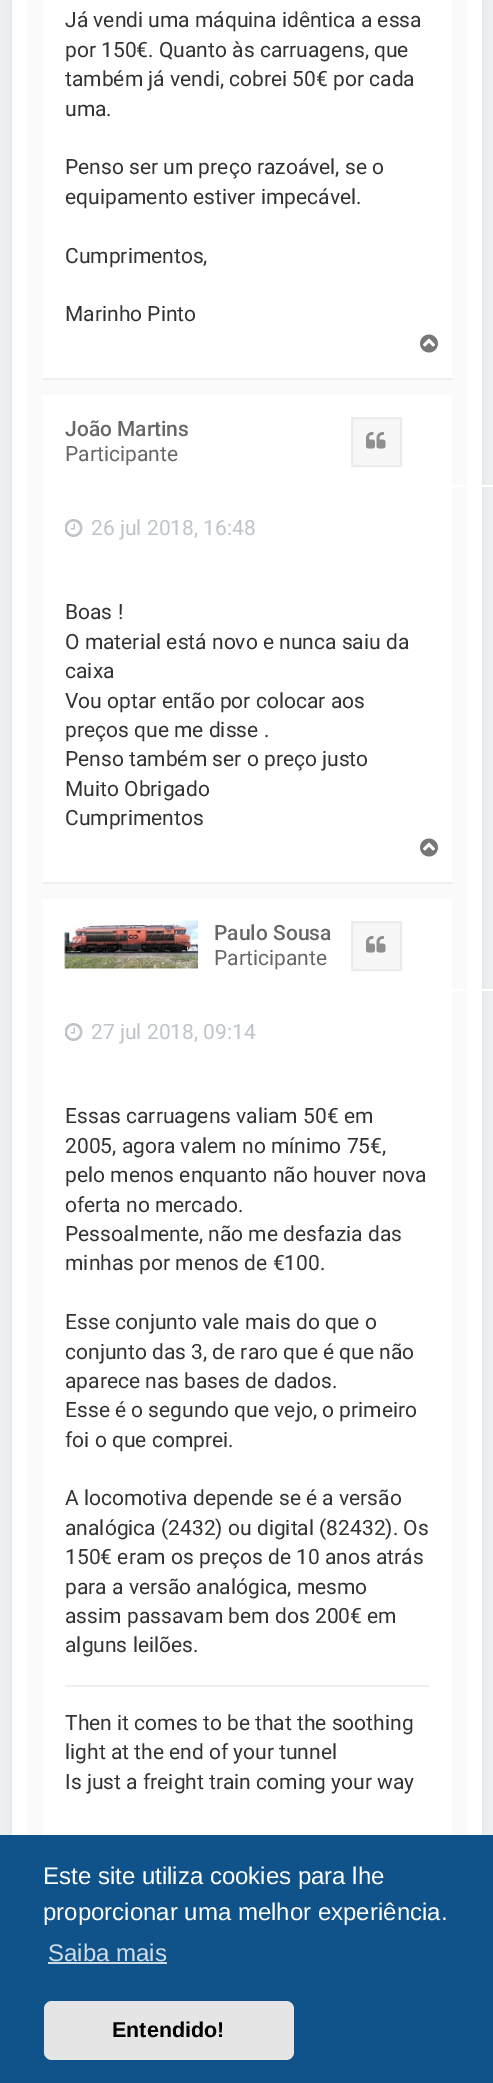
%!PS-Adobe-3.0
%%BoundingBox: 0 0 493 2083
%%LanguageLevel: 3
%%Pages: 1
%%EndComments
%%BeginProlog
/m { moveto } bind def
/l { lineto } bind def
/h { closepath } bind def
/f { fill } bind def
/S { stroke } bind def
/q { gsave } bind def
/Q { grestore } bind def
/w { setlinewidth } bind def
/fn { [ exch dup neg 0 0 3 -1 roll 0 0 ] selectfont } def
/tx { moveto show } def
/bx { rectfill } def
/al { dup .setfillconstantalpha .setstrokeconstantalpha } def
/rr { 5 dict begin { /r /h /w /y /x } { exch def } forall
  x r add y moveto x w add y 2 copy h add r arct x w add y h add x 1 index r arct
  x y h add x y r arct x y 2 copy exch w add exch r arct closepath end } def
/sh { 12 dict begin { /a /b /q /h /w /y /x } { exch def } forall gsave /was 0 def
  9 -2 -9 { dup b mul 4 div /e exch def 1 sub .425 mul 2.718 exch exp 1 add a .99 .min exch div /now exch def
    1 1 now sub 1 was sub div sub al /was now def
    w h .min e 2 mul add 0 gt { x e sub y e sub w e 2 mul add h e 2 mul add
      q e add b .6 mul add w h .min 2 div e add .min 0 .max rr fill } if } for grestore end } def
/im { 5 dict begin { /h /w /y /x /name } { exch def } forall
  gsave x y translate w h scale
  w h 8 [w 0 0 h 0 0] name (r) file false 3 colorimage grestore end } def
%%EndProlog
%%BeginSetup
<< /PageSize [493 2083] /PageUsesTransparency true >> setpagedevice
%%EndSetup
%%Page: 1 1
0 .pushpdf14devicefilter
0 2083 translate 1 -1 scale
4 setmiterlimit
0.925 0.941 0.945 setrgbcolor
0 0 493 2083 bx
0 setgray
12 -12 470 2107 0 4 0.05 sh
1 setgray
12 0 470 1835 bx
0.98 setgray
27 0 440 1835 bx
1 setgray
42 0 410 378 bx
0.925 0.941 0.945 setrgbcolor
42 378 410 2 bx
/Roboto-Regular 21 fn
0.2 setgray
(Já vendi uma máquina idêntica a essa) 65 27 tx
(por 150€. Quanto às carruagens, que) 65 57 tx
(também já vendi, cobrei 50€ por cada) 65 86 tx
(uma.) 65 116 tx
(Penso ser um preço razoável, se o) 65 174 tx
(equipamento estiver impecável.) 65 204 tx
(Cumprimentos,) 65 263 tx
(Marinho Pinto) 65 321 tx
(image0.raw) 420 334 18 19 im
1 setgray
42 395 410 487 bx
0.925 0.941 0.945 setrgbcolor
42 882 410 2 bx
1 setgray
452 485 41 2 bx
/Roboto-Medium 21 fn
0.404 setgray
(João Martins) 65 436 tx
/Roboto-Regular 21 fn
(Participante) 65 461 tx
0.969 setgray
352 418 m 401 418 l 401 466 l 352 466 l h q f Q
0.929 0.925 0.925 setrgbcolor
2 w
S
(image1.raw) 366 432 20 17 im
(image2.raw) 65 519 18 18 im
0.745 0.769 0.788 setrgbcolor
(26 jul 2018, 16:48) 91 535 tx
0.2 setgray
(Boas !) 65 619 tx
(O material está novo e nunca saiu da) 65 649 tx
(caixa) 65 678 tx
(Vou optar então por colocar aos) 65 708 tx
(preços que me disse .) 65 737 tx
(Penso também ser o preço justo) 65 766 tx
(Muito Obrigado) 65 796 tx
(Cumprimentos) 65 825 tx
(image0.raw) 420 838 18 19 im
1 setgray
42 899 410 936 bx
452 989 41 2 bx
(image3.raw) 64 920 134 49 im
/Roboto-Medium 21 fn
0.404 setgray
(Paulo Sousa) 214 940 tx
/Roboto-Regular 21 fn
(Participante) 214 965 tx
0.969 setgray
352 922 m 401 922 l 401 970 l 352 970 l h q f Q
0.929 0.925 0.925 setrgbcolor
S
(image1.raw) 366 936 20 17 im
(image2.raw) 65 1023 18 18 im
0.745 0.769 0.788 setrgbcolor
(27 jul 2018, 09:14) 91 1039 tx
0.2 setgray
(Essas carruagens valiam 50€ em) 65 1123 tx
(2005, agora valem no mínimo 75€,) 65 1153 tx
(pelo menos enquanto não houver nova) 65 1182 tx
(oferta no mercado.) 65 1212 tx
(Pessoalmente, não me desfazia das) 65 1241 tx
(minhas por menos de €100.) 65 1270 tx
(Esse conjunto vale mais do que o) 65 1329 tx
(conjunto das 3, de raro que é que não) 65 1359 tx
(aparece nas bases de dados.) 65 1388 tx
(Esse é o segundo que vejo, o primeiro) 65 1417 tx
(foi o que comprei.) 65 1447 tx
(A locomotiva depende se é a versão) 65 1505 tx
(analógica \(2432\) ou digital \(82432\). Os) 65 1535 tx
(150€ eram os preços de 10 anos atrás) 65 1564 tx
(para a versão analógica, mesmo) 65 1594 tx
(assim passavam bem dos 200€ em) 65 1623 tx
(alguns leilões.) 65 1652 tx
0.925 0.941 0.945 setrgbcolor
65 1685 364 2 bx
0.2 setgray
(Then it comes to be that the soothing) 65 1730 tx
(light at the end of your tunnel) 65 1759 tx
(Is just a freight train coming your way) 65 1789 tx
0.059 0.325 0.541 setrgbcolor
0 1835 493 248 bx
/LiberationSans-Regular 24 fn
1 setgray
(Este site utiliza cookies para lhe) 43 1884 tx
(proporcionar uma melhor experiência.) 43 1920 tx
0.812 0.867 0.91 setrgbcolor
(Saiba mais) 48 1961 tx
48 1962 119 2 bx
0.898 setgray
44 2001 250 59 8 rr f
/LiberationSans-Bold 21.5 fn
0 setgray
(Entendido!) 112 2037 tx
.poppdf14devicefilter showpage
%%EOF
